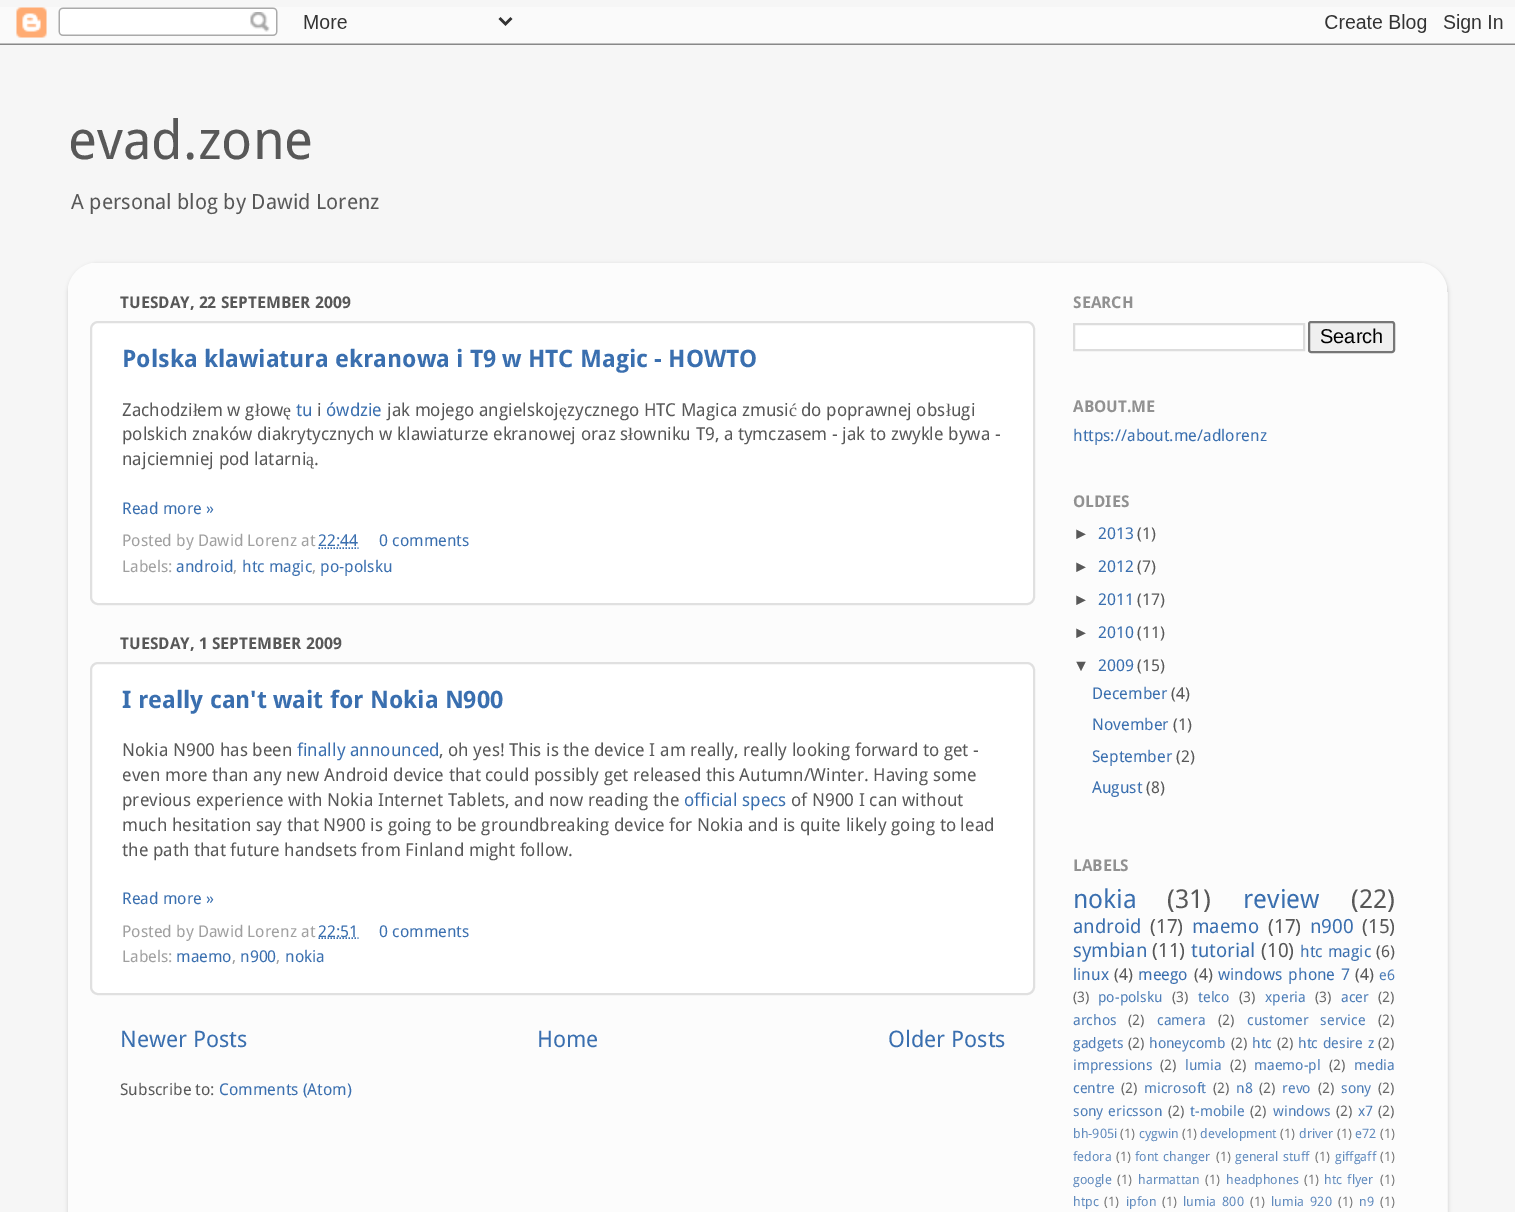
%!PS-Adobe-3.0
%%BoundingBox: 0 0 1515 1212
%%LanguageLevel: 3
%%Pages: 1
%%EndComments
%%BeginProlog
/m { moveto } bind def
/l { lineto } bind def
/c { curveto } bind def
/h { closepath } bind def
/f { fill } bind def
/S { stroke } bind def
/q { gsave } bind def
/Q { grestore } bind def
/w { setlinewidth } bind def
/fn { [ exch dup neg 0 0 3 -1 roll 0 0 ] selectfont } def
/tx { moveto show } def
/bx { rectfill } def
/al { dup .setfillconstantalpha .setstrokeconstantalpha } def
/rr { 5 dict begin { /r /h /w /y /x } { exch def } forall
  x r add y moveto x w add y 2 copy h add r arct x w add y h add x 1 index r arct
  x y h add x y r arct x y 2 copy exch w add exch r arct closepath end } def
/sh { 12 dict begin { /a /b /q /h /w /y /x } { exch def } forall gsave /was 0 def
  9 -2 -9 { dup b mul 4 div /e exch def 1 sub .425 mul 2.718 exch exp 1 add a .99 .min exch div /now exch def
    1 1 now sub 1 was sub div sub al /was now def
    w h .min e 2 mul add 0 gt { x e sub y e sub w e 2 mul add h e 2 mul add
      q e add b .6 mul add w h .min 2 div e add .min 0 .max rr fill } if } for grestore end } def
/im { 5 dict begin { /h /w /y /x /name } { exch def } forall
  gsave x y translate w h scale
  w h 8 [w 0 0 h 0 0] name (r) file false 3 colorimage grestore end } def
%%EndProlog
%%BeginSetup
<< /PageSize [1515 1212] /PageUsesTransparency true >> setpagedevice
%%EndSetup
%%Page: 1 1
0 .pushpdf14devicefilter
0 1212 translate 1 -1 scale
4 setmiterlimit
0.965 setgray
0 0 1515 1212 bx
(image0.raw) 0 7 1515 38 im
/DroidSans-Regular 54 fn
0.345 setgray
(evad.zone) 68 159 tx
/DroidSans-Regular 21 fn
(A personal blog by Dawid Lorenz) 71 209 tx
q
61 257 m 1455 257 l 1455 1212 l 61 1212 l h 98 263 m 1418 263 l 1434.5 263 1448 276.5 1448 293 c 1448 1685 l 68 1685 l 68 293 l 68 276.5 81.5 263 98 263 c h eoclip newpath
0 setgray
68 264 1380 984 30 2 0.15 sh
Q
(image1.raw) 68 263 1379 949 im
/DroidSans-Bold 16.25 fn
(TUESDAY, 22 SEPTEMBER 2009) 120 308 tx
1 setgray
91 322 943 282 7 rr q f Q
0.878 setgray
2 w
S
/DroidSans-Bold 24 fn
0.227 0.435 0.686 setrgbcolor
(Polska klawiatura ekranowa i T9 w HTC Magic - HOWTO) 122 367 tx
/DroidSans-Regular 17.8 fn
0.345 setgray
(Zachodzi) 122 416 tx
/LiberationSerif-Regular 17.8 fn
(ł) 193 416 tx
/DroidSans-Regular 17.8 fn
(em w g) 197 416 tx
/LiberationSerif-Regular 17.8 fn
(ł) 255 416 tx
/DroidSans-Regular 17.8 fn
(ow) 260 416 tx
/LiberationSerif-Regular 17.8 fn
(ę) 283 416 tx
/DroidSans-Regular 17.8 fn
0.227 0.435 0.686 setrgbcolor
(tu) 296 416 tx
0.345 setgray
(i) 317 416 tx
0.227 0.435 0.686 setrgbcolor
(ówdzie) 326 416 tx
0.345 setgray
(jak mojego angielskoj) 387 416 tx
/LiberationSerif-Regular 17.8 fn
(ę) 559 416 tx
/DroidSans-Regular 17.8 fn
(zycznego HTC Magica zmusi) 567 416 tx
/LiberationSerif-Regular 17.8 fn
(ć) 789 416 tx
/DroidSans-Regular 17.8 fn
(do poprawnej obs) 801 416 tx
/LiberationSerif-Regular 17.8 fn
(ł) 946 416 tx
/DroidSans-Regular 17.8 fn
(ugi) 951 416 tx
(polskich znaków diakrytycznych w klawiaturze ekranowej oraz s) 122 440 tx
/LiberationSerif-Regular 17.8 fn
(ł) 628 440 tx
/DroidSans-Regular 17.8 fn
(owniku T9, a tymczasem - jak to zwykle bywa -) 633 440 tx
(najciemniej pod latarni) 122 465 tx
/LiberationSerif-Regular 17.8 fn
(ą) 306 465 tx
/DroidSans-Regular 17.8 fn
(.) 314 465 tx
/DroidSans-Regular 16.25 fn
0.227 0.435 0.686 setrgbcolor
(Read more ») 122 514 tx
0.627 setgray
(Posted by Dawid Lorenz at) 122 546 tx
0.227 0.435 0.686 setrgbcolor
(22:44) 318 546 tx
1.5 w
[1.5 1.5] 0 setdash
318.5 548 m 358.5 548 l S
(0 comments) 379 546 tx
0.627 setgray
(Labels:) 122 572 tx
0.227 0.435 0.686 setrgbcolor
(android) 176 572 tx
0.627 setgray
(,) 233 572 tx
0.227 0.435 0.686 setrgbcolor
(htc magic) 242 572 tx
0.627 setgray
(,) 312 572 tx
0.227 0.435 0.686 setrgbcolor
(po-polsku) 320 572 tx
/DroidSans-Bold 16.25 fn
0.345 setgray
(TUESDAY, 1 SEPTEMBER 2009) 120 649 tx
1 setgray
91 663 943 331 7 rr q f Q
0.878 setgray
2 w
[] 0 setdash
S
/DroidSans-Bold 24 fn
0.227 0.435 0.686 setrgbcolor
(I really can't wait for Nokia N900) 122 708 tx
/DroidSans-Regular 17.8 fn
0.345 setgray
(Nokia N900 has been) 122 756 tx
0.227 0.435 0.686 setrgbcolor
(finally announced) 297 756 tx
0.345 setgray
(, oh yes! This is the device I am really, really looking forward to get -) 439 756 tx
(even more than any new Android device that could possibly get released this Autumn/Winter. Having some) 122 781 tx
(previous experience with Nokia Internet Tablets, and now reading the) 122 806 tx
0.227 0.435 0.686 setrgbcolor
(official specs) 684 806 tx
0.345 setgray
(of N900 I can without) 791 806 tx
(much hesitation say that N900 is going to be groundbreaking device for Nokia and is quite likely going to lead) 122 831 tx
(the path that future handsets from Finland might follow.) 122 856 tx
/DroidSans-Regular 16.25 fn
0.227 0.435 0.686 setrgbcolor
(Read more ») 122 904 tx
0.627 setgray
(Posted by Dawid Lorenz at) 122 937 tx
0.227 0.435 0.686 setrgbcolor
1.5 w
[1.5 1.5] 0 setdash
318.5 938 m 358.5 938 l S
(22:51) 318 937 tx
(0 comments) 379 937 tx
0.627 setgray
(Labels:) 122 962 tx
0.227 0.435 0.686 setrgbcolor
(maemo) 176 962 tx
0.627 setgray
(,) 232 962 tx
0.227 0.435 0.686 setrgbcolor
(n900) 240 962 tx
0.627 setgray
(,) 276 962 tx
0.227 0.435 0.686 setrgbcolor
(nokia) 285 962 tx
/DroidSans-Regular 22.75 fn
(Newer Posts) 120 1047 tx
(Home) 537 1047 tx
(Older Posts) 888 1047 tx
/DroidSans-Regular 16.25 fn
0.345 setgray
(Subscribe to:) 120 1095 tx
0.227 0.435 0.686 setrgbcolor
(Comments \(Atom\)) 219 1095 tx
/DroidSans-Bold 16.25 fn
0.569 setgray
(SEARCH) 1073 308 tx
1 setgray
1074 324 m 1304 324 l 1304 350 l 1074 350 l h q f Q
0.867 setgray
2 w
[] 0 setdash
S
0.937 setgray
1309 322 85 30 2 rr q f Q
0.463 setgray
S
/LiberationSans-Regular 20 fn
0 setgray
(Search) 1320 343 tx
/DroidSans-Bold 16.25 fn
0.569 setgray
(ABOUT.ME) 1073 412 tx
/DroidSans-Regular 16.25 fn
0.227 0.435 0.686 setrgbcolor
(https://about.me/adlorenz) 1073 441 tx
/DroidSans-Bold 16.25 fn
0.569 setgray
(OLDIES) 1073 507 tx
/LiberationSans-Regular 16.25 fn
0.345 setgray
(►) 1073 539 tx
/DroidSans-Regular 16.25 fn
0.227 0.435 0.686 setrgbcolor
(2013) 1098 539 tx
0.345 setgray
(\(1\)) 1137 539 tx
/LiberationSans-Regular 16.25 fn
(►) 1073 572 tx
/DroidSans-Regular 16.25 fn
0.227 0.435 0.686 setrgbcolor
(2012) 1098 572 tx
0.345 setgray
(\(7\)) 1137 572 tx
/LiberationSans-Regular 16.25 fn
(►) 1073 605 tx
/DroidSans-Regular 16.25 fn
0.227 0.435 0.686 setrgbcolor
(2011) 1098 605 tx
0.345 setgray
(\(17\)) 1137 605 tx
/LiberationSans-Regular 16.25 fn
(►) 1073 638 tx
/DroidSans-Regular 16.25 fn
0.227 0.435 0.686 setrgbcolor
(2010) 1098 638 tx
0.345 setgray
(\(11\)) 1137 638 tx
/LiberationSans-Regular 16.25 fn
(▼) 1073 671 tx
/DroidSans-Regular 16.25 fn
0.227 0.435 0.686 setrgbcolor
(2009) 1098 671 tx
0.345 setgray
(\(15\)) 1137 671 tx
0.227 0.435 0.686 setrgbcolor
(December) 1092 699 tx
0.345 setgray
(\(4\)) 1171 699 tx
0.227 0.435 0.686 setrgbcolor
(November) 1092 730 tx
0.345 setgray
(\(1\)) 1173 730 tx
0.227 0.435 0.686 setrgbcolor
(September) 1092 762 tx
0.345 setgray
(\(2\)) 1176 762 tx
0.227 0.435 0.686 setrgbcolor
(August) 1092 793 tx
0.345 setgray
(\(8\)) 1146 793 tx
/DroidSans-Bold 16.25 fn
0.569 setgray
(LABELS) 1073 871 tx
/DroidSans-Regular 26 fn
0.227 0.435 0.686 setrgbcolor
(nokia) 1073 908 tx
0.345 setgray
(\(31\)) 1167 908 tx
0.227 0.435 0.686 setrgbcolor
(review) 1243 908 tx
0.345 setgray
(\(22\)) 1351 908 tx
/DroidSans-Regular 19.5 fn
0.227 0.435 0.686 setrgbcolor
(android) 1073 933 tx
0.345 setgray
(\(17\)) 1150 933 tx
0.227 0.435 0.686 setrgbcolor
(maemo) 1192 933 tx
0.345 setgray
(\(17\)) 1268 933 tx
0.227 0.435 0.686 setrgbcolor
(n900) 1310 933 tx
0.345 setgray
(\(15\)) 1362 933 tx
0.227 0.435 0.686 setrgbcolor
(symbian) 1073 957 tx
0.345 setgray
(\(11\)) 1152 957 tx
0.227 0.435 0.686 setrgbcolor
(tutorial) 1191 957 tx
0.345 setgray
(\(10\)) 1261 957 tx
/DroidSans-Regular 16.25 fn
0.227 0.435 0.686 setrgbcolor
1300 957 m 1 0 32 (htc magic) widthshow
0.345 setgray
(\(6\)) 1376 957 tx
0.227 0.435 0.686 setrgbcolor
(linux) 1073 980 tx
0.345 setgray
(\(4\)) 1114 980 tx
0.227 0.435 0.686 setrgbcolor
(meego) 1138 980 tx
0.345 setgray
(\(4\)) 1194 980 tx
0.227 0.435 0.686 setrgbcolor
1218 980 m 2 0 32 (windows phone 7) widthshow
0.345 setgray
(\(4\)) 1355 980 tx
/DroidSans-Regular 14.5 fn
0.302 0.49 0.718 setrgbcolor
(e6) 1379 980 tx
0.408 setgray
(\(3\)) 1073 1002 tx
0.302 0.49 0.718 setrgbcolor
(po-polsku) 1098 1002 tx
0.408 setgray
(\(3\)) 1172 1002 tx
0.302 0.49 0.718 setrgbcolor
(telco) 1198 1002 tx
0.408 setgray
(\(3\)) 1239 1002 tx
0.302 0.49 0.718 setrgbcolor
(xperia) 1265 1002 tx
0.408 setgray
(\(3\)) 1315 1002 tx
0.302 0.49 0.718 setrgbcolor
(acer) 1341 1002 tx
0.408 setgray
(\(2\)) 1378 1002 tx
0.302 0.49 0.718 setrgbcolor
(archos) 1073 1025 tx
0.408 setgray
(\(2\)) 1128 1025 tx
0.302 0.49 0.718 setrgbcolor
(camera) 1157 1025 tx
0.408 setgray
(\(2\)) 1218 1025 tx
0.302 0.49 0.718 setrgbcolor
1247 1025 m 8 0 32 (customer service) widthshow
0.408 setgray
(\(2\)) 1378 1025 tx
0.302 0.49 0.718 setrgbcolor
(gadgets) 1073 1048 tx
0.408 setgray
(\(2\)) 1128 1048 tx
0.302 0.49 0.718 setrgbcolor
(honeycomb) 1149 1048 tx
0.408 setgray
(\(2\)) 1231 1048 tx
0.302 0.49 0.718 setrgbcolor
(htc) 1252 1048 tx
0.408 setgray
(\(2\)) 1277 1048 tx
0.302 0.49 0.718 setrgbcolor
1298 1048 m 1 0 32 (htc desire z) widthshow
0.408 setgray
(\(2\)) 1378 1048 tx
0.302 0.49 0.718 setrgbcolor
(impressions) 1073 1070 tx
0.408 setgray
(\(2\)) 1160 1070 tx
0.302 0.49 0.718 setrgbcolor
(lumia) 1185 1070 tx
0.408 setgray
(\(2\)) 1230 1070 tx
0.302 0.49 0.718 setrgbcolor
(maemo-pl) 1254 1070 tx
0.408 setgray
(\(2\)) 1329 1070 tx
0.302 0.49 0.718 setrgbcolor
(media) 1354 1070 tx
(centre) 1073 1093 tx
0.408 setgray
(\(2\)) 1121 1093 tx
0.302 0.49 0.718 setrgbcolor
(microsoft) 1144 1093 tx
0.408 setgray
(\(2\)) 1213 1093 tx
0.302 0.49 0.718 setrgbcolor
(n8) 1236 1093 tx
0.408 setgray
(\(2\)) 1259 1093 tx
0.302 0.49 0.718 setrgbcolor
(revo) 1282 1093 tx
0.408 setgray
(\(2\)) 1318 1093 tx
0.302 0.49 0.718 setrgbcolor
(sony) 1341 1093 tx
0.408 setgray
(\(2\)) 1378 1093 tx
0.302 0.49 0.718 setrgbcolor
1073 1116 m 1 0 32 (sony ericsson) widthshow
0.408 setgray
(\(2\)) 1168 1116 tx
0.302 0.49 0.718 setrgbcolor
(t-mobile) 1190 1116 tx
0.408 setgray
(\(2\)) 1250 1116 tx
0.302 0.49 0.718 setrgbcolor
(windows) 1273 1116 tx
0.408 setgray
(\(2\)) 1336 1116 tx
0.302 0.49 0.718 setrgbcolor
(x7) 1358 1116 tx
0.408 setgray
(\(2\)) 1378 1116 tx
/DroidSans-Regular 13 fn
0.38 0.545 0.745 setrgbcolor
(bh-905i) 1073 1138 tx
0.475 setgray
(\(1\)) 1120 1138 tx
0.38 0.545 0.745 setrgbcolor
(cygwin) 1139 1138 tx
0.475 setgray
(\(1\)) 1182 1138 tx
0.38 0.545 0.745 setrgbcolor
(development) 1200 1138 tx
0.475 setgray
(\(1\)) 1280 1138 tx
0.38 0.545 0.745 setrgbcolor
(driver) 1299 1138 tx
0.475 setgray
(\(1\)) 1337 1138 tx
0.38 0.545 0.745 setrgbcolor
(e72) 1355 1138 tx
0.475 setgray
(\(1\)) 1380 1138 tx
0.38 0.545 0.745 setrgbcolor
(fedora) 1073 1161 tx
0.475 setgray
(\(1\)) 1116 1161 tx
0.38 0.545 0.745 setrgbcolor
1135 1161 m 1 0 32 (font changer) widthshow
0.475 setgray
(\(1\)) 1216 1161 tx
0.38 0.545 0.745 setrgbcolor
1235 1161 m 1 0 32 (general stuff) widthshow
0.475 setgray
(\(1\)) 1315 1161 tx
0.38 0.545 0.745 setrgbcolor
(giffgaff) 1335 1161 tx
0.475 setgray
(\(1\)) 1380 1161 tx
0.38 0.545 0.745 setrgbcolor
(google) 1073 1184 tx
0.475 setgray
(\(1\)) 1117 1184 tx
0.38 0.545 0.745 setrgbcolor
(harmattan) 1138 1184 tx
0.475 setgray
(\(1\)) 1205 1184 tx
0.38 0.545 0.745 setrgbcolor
(headphones) 1226 1184 tx
0.475 setgray
(\(1\)) 1304 1184 tx
0.38 0.545 0.745 setrgbcolor
1324 1184 m 2 0 32 (htc flyer) widthshow
0.475 setgray
(\(1\)) 1380 1184 tx
0.38 0.545 0.745 setrgbcolor
(htpc) 1073 1206 tx
0.475 setgray
(\(1\)) 1104 1206 tx
0.38 0.545 0.745 setrgbcolor
(ipfon) 1126 1206 tx
0.475 setgray
(\(1\)) 1162 1206 tx
0.38 0.545 0.745 setrgbcolor
1183 1206 m 3 0 32 (lumia 800) widthshow
0.475 setgray
(\(1\)) 1250 1206 tx
0.38 0.545 0.745 setrgbcolor
1271 1206 m 3 0 32 (lumia 920) widthshow
0.475 setgray
(\(1\)) 1338 1206 tx
0.38 0.545 0.745 setrgbcolor
(n9) 1359 1206 tx
0.475 setgray
(\(1\)) 1380 1206 tx
.poppdf14devicefilter showpage
%%EOF
